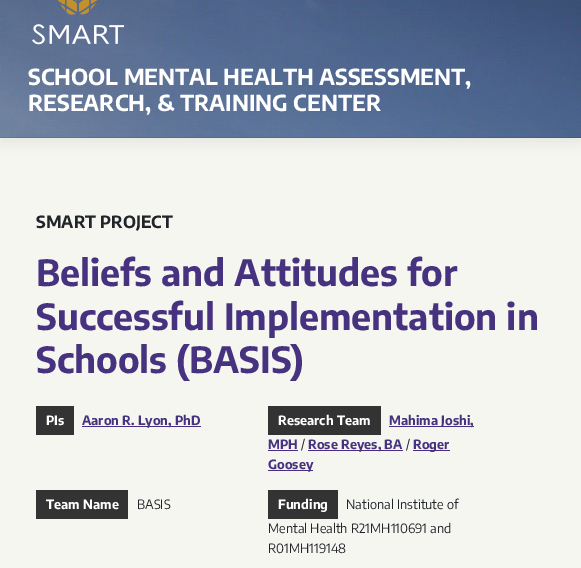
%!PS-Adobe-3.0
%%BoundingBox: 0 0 581 568
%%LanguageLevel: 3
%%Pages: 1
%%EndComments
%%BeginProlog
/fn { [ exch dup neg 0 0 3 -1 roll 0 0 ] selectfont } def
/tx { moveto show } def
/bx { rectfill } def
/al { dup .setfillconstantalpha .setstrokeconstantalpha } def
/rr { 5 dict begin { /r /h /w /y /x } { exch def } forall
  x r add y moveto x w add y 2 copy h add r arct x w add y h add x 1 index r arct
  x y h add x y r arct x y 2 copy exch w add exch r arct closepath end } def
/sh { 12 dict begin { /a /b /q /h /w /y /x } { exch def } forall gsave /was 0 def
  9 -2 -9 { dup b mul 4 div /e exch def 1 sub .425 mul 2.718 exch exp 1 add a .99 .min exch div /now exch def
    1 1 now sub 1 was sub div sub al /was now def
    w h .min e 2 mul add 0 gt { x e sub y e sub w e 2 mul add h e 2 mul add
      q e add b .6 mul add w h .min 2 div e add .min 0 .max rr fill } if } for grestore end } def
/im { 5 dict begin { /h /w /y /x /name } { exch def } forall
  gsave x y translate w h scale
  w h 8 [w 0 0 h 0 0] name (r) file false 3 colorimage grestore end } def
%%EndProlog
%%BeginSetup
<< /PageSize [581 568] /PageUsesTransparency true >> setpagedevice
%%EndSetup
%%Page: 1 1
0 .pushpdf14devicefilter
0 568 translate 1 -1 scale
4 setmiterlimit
0.965 0.965 0.945 setrgbcolor
0 0 581 568 bx
0 setgray
0 -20 581 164 0 6.5 0.05 sh
(image0.raw) 0 0 581 138 im
0.1 al
0 137 581 1 bx
1 al
(image1.raw) 32 0 93 45 im
/EncodeSansCondensed-Bold 22 fn
1 setgray
(SCHOOL MENTAL HEALTH ASSESSMENT,) 28 85 tx
(RESEARCH, & TRAINING CENTER) 28 111 tx
/EncodeSansCondensed-Bold 16.75 fn
0.129 0.145 0.161 setrgbcolor
(SMART PROJECT) 36 228 tx
/EncodeSansCondensed-Bold 36 fn
0.275 0.196 0.494 setrgbcolor
(Beliefs and Attitudes for) 36 286 tx
(Successful Implementation in) 36 330 tx
(Schools \(BASIS\)) 36 373 tx
0.2 setgray
36 406 38 29 bx
/EncodeSansCondensed-Bold 12.75 fn
1 setgray
(PIs) 46 425 tx
0.294 0.18 0.514 setrgbcolor
82 426 119 1 bx
0.275 0.196 0.494 setrgbcolor
(Aaron R. Lyon, PhD) 82 425 tx
0.2 setgray
268 406 113 29 bx
1 setgray
(Research Team) 278 425 tx
0.294 0.18 0.514 setrgbcolor
389 426 85 1 bx
0.275 0.196 0.494 setrgbcolor
(Mahima Joshi,) 389 425 tx
(MPH) 268 449 tx
0.294 0.18 0.514 setrgbcolor
268 450 30 1 bx
/EncodeSansCondensed-Regular 12.75 fn
0.129 0.145 0.161 setrgbcolor
(/) 301 449 tx
0.294 0.18 0.514 setrgbcolor
308 450 95 1 bx
/EncodeSansCondensed-Bold 12.75 fn
0.275 0.196 0.494 setrgbcolor
(Rose Reyes, BA) 308 449 tx
/EncodeSansCondensed-Regular 12.75 fn
0.129 0.145 0.161 setrgbcolor
(/) 406 449 tx
0.294 0.18 0.514 setrgbcolor
413 450 37 1 bx
/EncodeSansCondensed-Bold 12.75 fn
0.275 0.196 0.494 setrgbcolor
(Roger) 413 449 tx
0.294 0.18 0.514 setrgbcolor
268 470 45 1 bx
0.275 0.196 0.494 setrgbcolor
(Goosey) 268 469 tx
0.2 setgray
36 490 92 29 bx
1 setgray
(Team Name) 46 509 tx
/EncodeSansCondensed-Regular 12.75 fn
0.129 0.145 0.161 setrgbcolor
(BASIS) 137 509 tx
0.2 setgray
268 490 70 29 bx
/EncodeSansCondensed-Bold 12.75 fn
1 setgray
(Funding) 278 509 tx
/EncodeSansCondensed-Regular 12.75 fn
0.129 0.145 0.161 setrgbcolor
(National Institute of) 346 509 tx
(Mental Health R21MH110691 and) 268 533 tx
(R01MH119148) 268 553 tx
.poppdf14devicefilter showpage
%%EOF
